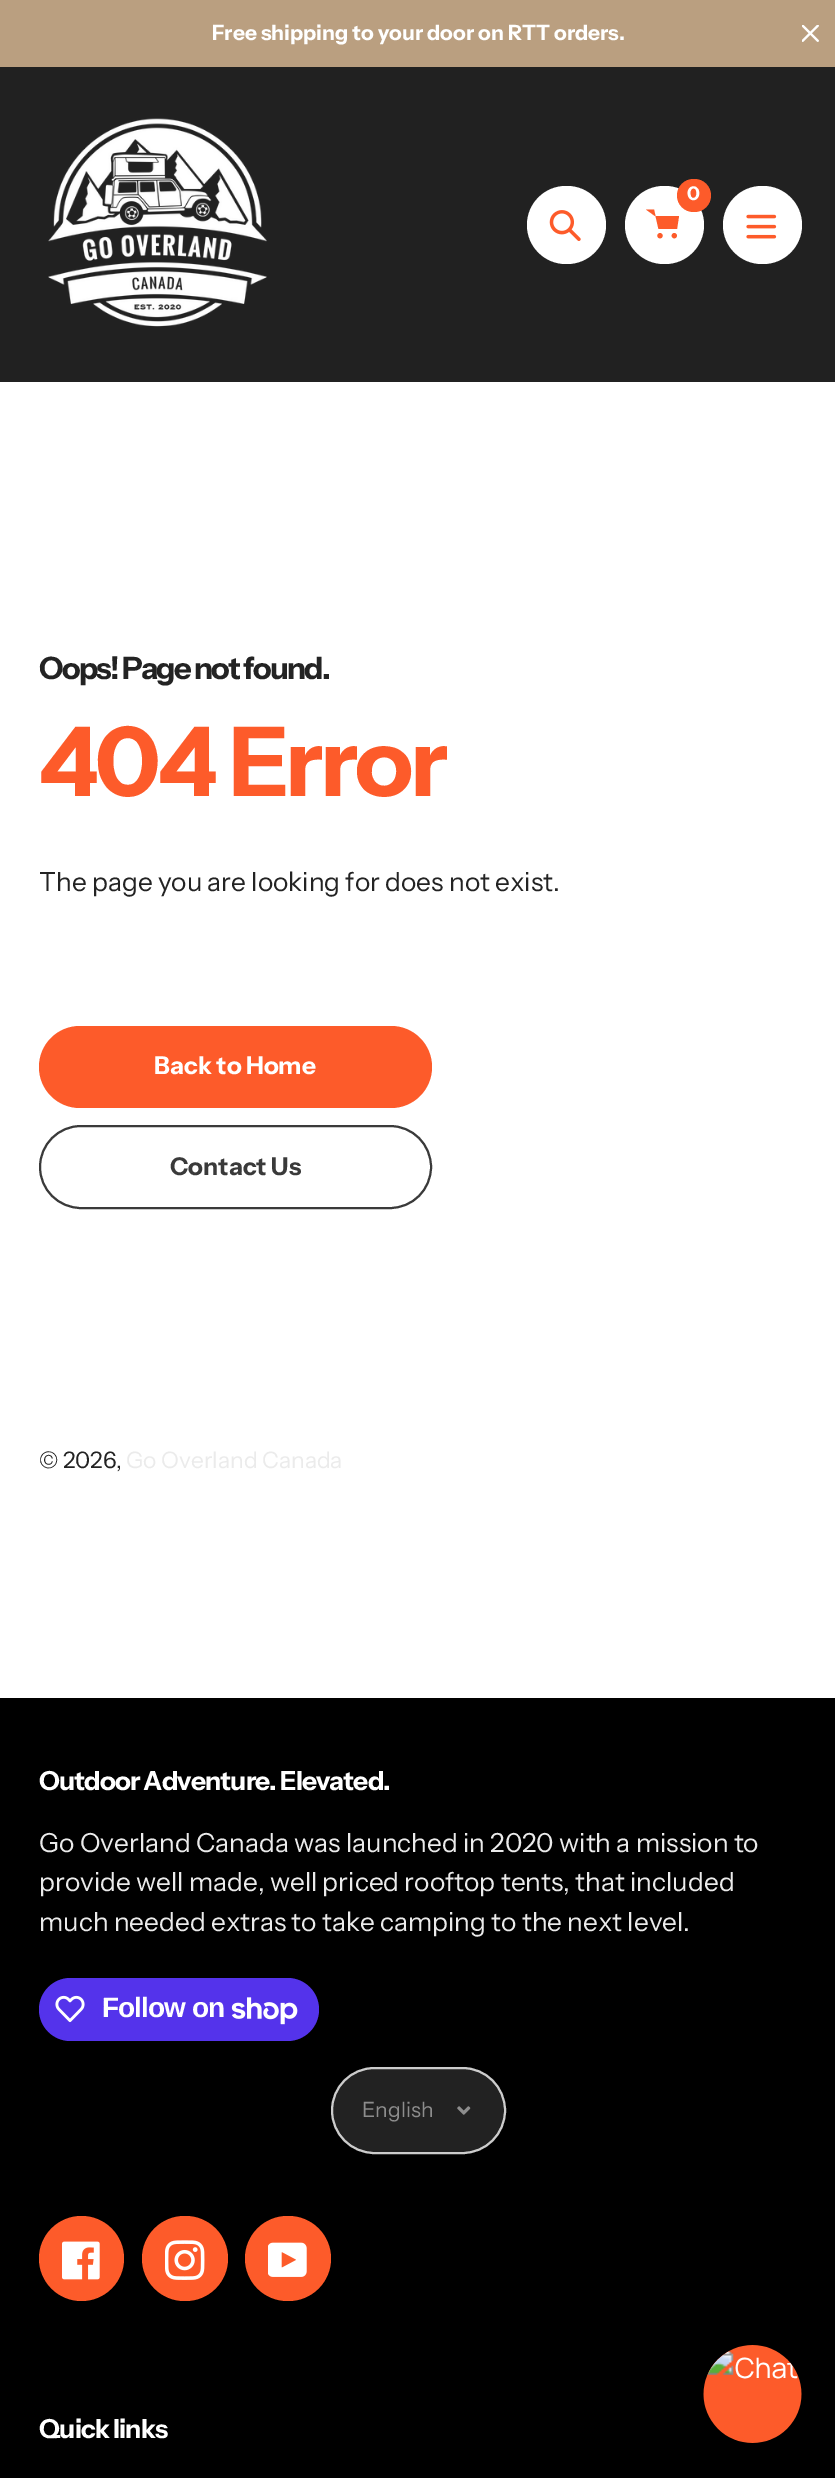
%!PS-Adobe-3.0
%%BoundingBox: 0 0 835 2478
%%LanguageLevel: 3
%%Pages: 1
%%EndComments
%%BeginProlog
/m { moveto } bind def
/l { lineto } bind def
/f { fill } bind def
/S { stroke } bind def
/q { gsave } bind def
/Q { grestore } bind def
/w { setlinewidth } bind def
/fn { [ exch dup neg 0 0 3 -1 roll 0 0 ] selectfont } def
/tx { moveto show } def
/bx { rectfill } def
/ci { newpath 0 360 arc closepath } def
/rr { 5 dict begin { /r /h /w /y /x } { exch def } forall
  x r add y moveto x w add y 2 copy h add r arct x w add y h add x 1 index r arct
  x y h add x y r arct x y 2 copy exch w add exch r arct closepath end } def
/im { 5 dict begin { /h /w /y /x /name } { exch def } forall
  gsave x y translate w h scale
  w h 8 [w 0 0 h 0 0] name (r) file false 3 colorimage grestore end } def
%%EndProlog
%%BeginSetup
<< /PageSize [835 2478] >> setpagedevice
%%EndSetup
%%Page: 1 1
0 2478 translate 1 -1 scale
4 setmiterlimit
1 setgray
0 0 835 2478 bx
0.729 0.624 0.502 setrgbcolor
0 0 835 67 bx
/InstrumentSans-Bold 21 fn
1 setgray
(Free shipping to your door on RTT orders.) 212 40 tx
(image0.raw) 802 25 17 17 im
0.129 setgray
0 67 835 315 bx
(image1.raw) 48 118 219 209 im
1 setgray
527 186 79 78 39 rr f
(image2.raw) 549 210 32 31 im
625 186 79 78 39 rr f
0.992 0.357 0.165 setrgbcolor
655 216 m 679 216 l 677 229 l 658.5 229 l 654 209.5 l 646 209.5 l eofill
677 179 34 33 16.5 rr f
/InstrumentSans-Bold 19 fn
1 setgray
(0) 687 200 tx
0.992 0.357 0.165 setrgbcolor
660 235.7 2.6 ci f
674.3 235.7 2.6 ci f
1 setgray
723 186 79 78 39 rr f
(image3.raw) 746 214 31 25 im
/InstrumentSans-Bold 30.75 fn
0.137 setgray
39 679 m -1.75 0 (Oops! Page not found.) ashow
/InstrumentSans-Bold 96.25 fn
0.992 0.357 0.165 setrgbcolor
39 796 m -3.5 0 (404 Error) ashow
/InstrumentSans-Regular 26.25 fn
0.137 setgray
(The page you are looking for does not exist.) 39 891 tx
0.992 0.357 0.165 setrgbcolor
39 1026 393 82 41 rr f
/InstrumentSans-Bold 24.5 fn
1 setgray
(Back to Home) 154 1074 tx
0.227 setgray
2 w
40 1126 391 82 41 rr S
(Contact Us) 170 1175 tx
/InstrumentSans-Regular 22.75 fn
0.137 setgray
(© 2026,) 39 1468 tx
0.922 setgray
(Go Overland Canada) 126 1468 tx
0 setgray
0 1698 835 780 bx
/InstrumentSans-Bold 26.25 fn
1 setgray
39 1790 m -0.9 0 (Outdoor Adventure. Elevated.) ashow
/InstrumentSans-Regular 26.25 fn
0.922 setgray
(Go Overland Canada was launched in 2020 with a mission to) 39 1852 tx
(provide well made, well priced rooftop tents, that included) 39 1891 tx
(much needed extras to take camping to the next level.) 39 1931 tx
0.329 0.2 0.922 setrgbcolor
39 1978 280 63 31.5 rr f
(image4.raw) 55 1995 30 28 im
/LiberationSans-Bold 28 fn
1 setgray
102 2017 m -0.9 0 (Follow on) ashow
(image5.raw) 231 1997 67 28 im
0.133 setgray
332 2068 173 85 42.5 rr q f Q
0.8 setgray
S
/InstrumentSans-Regular 21 fn
0.553 setgray
(English) 362 2117 tx
(image6.raw) 457 2106 14 9 im
0.992 0.357 0.165 setrgbcolor
81.5 2258.5 42.5 ci f
(image7.raw) 62 2241 38 39 im
142 2216 86 85 42.5 rr f
(image8.raw) 165 2240 40 40 im
245 2216 86 85 42.5 rr f
(image9.raw) 268 2242 39 35 im
/InstrumentSans-Bold 26.25 fn
1 setgray
39 2438 m -0.9 0 (Quick links) ashow
(image10.raw) 703 2345 99 98 im
showpage
%%EOF
